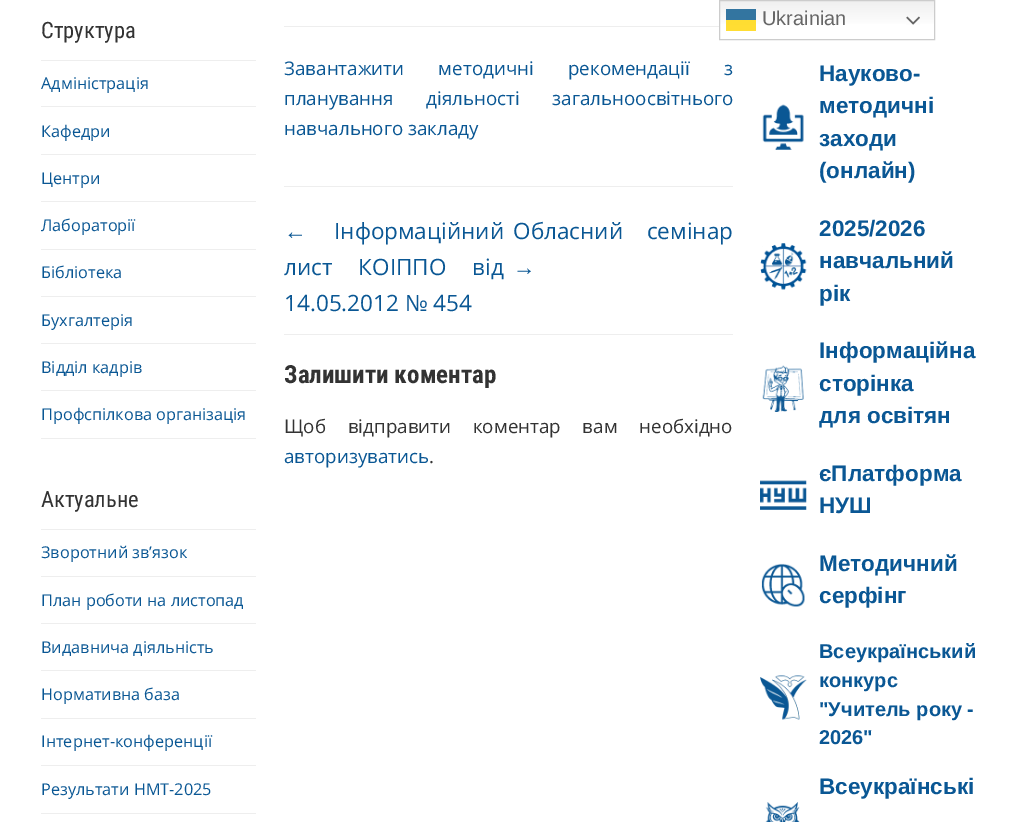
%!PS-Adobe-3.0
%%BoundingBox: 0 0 1016 822
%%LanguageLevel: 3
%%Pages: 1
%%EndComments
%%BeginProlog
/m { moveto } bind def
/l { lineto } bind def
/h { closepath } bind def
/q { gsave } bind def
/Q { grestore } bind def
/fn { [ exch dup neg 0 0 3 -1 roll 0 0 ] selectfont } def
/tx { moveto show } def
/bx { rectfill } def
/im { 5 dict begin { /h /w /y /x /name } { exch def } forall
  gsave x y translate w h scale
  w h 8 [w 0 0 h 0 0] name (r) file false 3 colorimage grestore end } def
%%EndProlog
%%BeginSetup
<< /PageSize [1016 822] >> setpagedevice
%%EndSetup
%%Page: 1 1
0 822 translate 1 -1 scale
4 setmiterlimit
1 setgray
0 0 1016 822 bx
q 720 1 m 934 1 l 934 24 l 720 24 l h clip newpath
<< /ShadingType 2 /ColorSpace /DeviceRGB /Coords [827 0 827 40] /Extend [true true] /Function << /FunctionType 3 /Domain [0 1] /Functions [<< /FunctionType 2 /Domain [0 1] /C0 [0.937 0.937 0.937] /C1 [1 1 1] /N 1 >> << /FunctionType 2 /Domain [0 1] /C0 [1 1 1] /C1 [1 1 1] /N 1 >>] /Bounds [0.7] /Encode [0 1 0 1] >> >> shfill Q
q 726 20 m 756 20 l 756 31 l 726 31 l h clip newpath
<< /ShadingType 2 /ColorSpace /DeviceRGB /Coords [827 0 827 40] /Extend [true true] /Function << /FunctionType 3 /Domain [0 1] /Functions [<< /FunctionType 2 /Domain [0 1] /C0 [0.988 0.855 0.188] /C1 [1 0.867 0.2] /N 1 >> << /FunctionType 2 /Domain [0 1] /C0 [1 0.867 0.2] /C1 [1 0.867 0.2] /N 1 >>] /Bounds [0.7] /Encode [0 1 0 1] >> >> shfill Q
0.8 setgray
719.5 0.5 215 39 rectstroke
0.2 0.459 0.627 setrgbcolor
726 9 30 11 bx
/LiberationSans-Regular 20 fn
0.4 setgray
(Ukrainian) 762 25 tx
(image0.raw) 906 16 14 9 im
0.933 setgray
41 60 215 1 bx
/RobotoCondensed-Regular 22.5 fn
0.2 setgray
(Структура) 41 38 tx
0.933 setgray
41 106 215 1 bx
/OpenSans-Regular 16.25 fn
0.039 0.341 0.58 setrgbcolor
(Адміністрація) 41 89 tx
0.933 setgray
41 154 215 1 bx
0.039 0.341 0.58 setrgbcolor
(Кафедри) 41 137 tx
0.933 setgray
41 201 215 1 bx
0.039 0.341 0.58 setrgbcolor
(Центри) 41 184 tx
0.933 setgray
41 249 215 1 bx
0.039 0.341 0.58 setrgbcolor
(Лабораторії) 41 231 tx
0.933 setgray
41 296 215 1 bx
0.039 0.341 0.58 setrgbcolor
(Бібліотека) 41 278 tx
0.933 setgray
41 343 215 1 bx
0.039 0.341 0.58 setrgbcolor
(Бухгалтерія) 41 326 tx
0.933 setgray
41 390 215 1 bx
0.039 0.341 0.58 setrgbcolor
(Відділ кадрів) 41 373 tx
0.933 setgray
41 438 215 1 bx
0.039 0.341 0.58 setrgbcolor
(Профспілкова організація) 41 420 tx
0.933 setgray
41 529 215 1 bx
/RobotoCondensed-Regular 22.5 fn
0.2 setgray
(Актуальне) 41 507 tx
0.933 setgray
41 576 215 1 bx
/OpenSans-Regular 16.25 fn
0.039 0.341 0.58 setrgbcolor
(Зворотний зв’язок) 41 558 tx
0.933 setgray
41 623 215 1 bx
0.039 0.341 0.58 setrgbcolor
(План роботи на листопад) 41 606 tx
0.933 setgray
41 670 215 1 bx
0.039 0.341 0.58 setrgbcolor
(Видавнича діяльність) 41 653 tx
0.933 setgray
41 718 215 1 bx
0.039 0.341 0.58 setrgbcolor
(Нормативна база) 41 700 tx
0.933 setgray
41 765 215 1 bx
0.039 0.341 0.58 setrgbcolor
(Інтернет-конференції) 41 747 tx
0.933 setgray
41 813 215 1 bx
0.039 0.341 0.58 setrgbcolor
(Результати НМТ-2025) 41 795 tx
0.933 setgray
284 26 435 1 bx
/OpenSans-Regular 18.75 fn
0.039 0.341 0.58 setrgbcolor
284 75 m 29.5 0 32 (Завантажити методичні рекомендації з) widthshow
284 105 m 28 0 32 (планування діяльності загальноосвітнього) widthshow
(навчального закладу) 284 135 tx
0.933 setgray
284 186 449 1 bx
/LiberationSans-Regular 22.5 fn
0.039 0.341 0.58 setrgbcolor
(←) 284 239 tx
/OpenSans-Regular 22.5 fn
(Інформаційний) 334 239 tx
284 275 m 20 0 32 (лист КОІППО від) widthshow
(14.05.2012 № 454) 284 311 tx
513 239 m 18 0 32 (Обласний семінар) widthshow
/LiberationSans-Regular 22.5 fn
(→) 513 275 tx
0.933 setgray
284 334 449 1 bx
/RobotoCondensed-Bold 25 fn
0.2 setgray
(Залишити коментар) 284 383 tx
/OpenSans-Regular 18.75 fn
284 433 m 17 0 32 (Щоб відправити коментар вам необхідно) widthshow
0.039 0.341 0.58 setrgbcolor
(авторизуватись) 284 463 tx
0.2 setgray
(.) 429 463 tx
(image1.raw) 762 104 42 46 im
/LiberationSans-Bold 22.5 fn
0.039 0.341 0.58 setrgbcolor
(Науково-) 819 81 tx
(методичні) 819 113 tx
(заходи) 819 146 tx
(\(онлайн\)) 819 178 tx
(image2.raw) 760 243 47 47 im
(2025/2026) 819 236 tx
(навчальний) 819 268 tx
(рік) 819 301 tx
(image3.raw) 762 365 42 47 im
(Інформаційна) 819 358 tx
(сторінка) 819 391 tx
(для освітян) 819 423 tx
(image4.raw) 760 480 47 30 im
(єПлатформа) 819 481 tx
(НУШ) 819 513 tx
(image5.raw) 761 563 44 44 im
(Методичний) 819 571 tx
(серфінг) 819 603 tx
(image6.raw) 760 675 47 45 im
/LiberationSans-Bold 20 fn
(Всеукраїнський) 819 658 tx
(конкурс) 819 687 tx
("Учитель року -) 819 716 tx
(2026") 819 744 tx
/LiberationSans-Bold 22.5 fn
(Всеукраїнські) 819 794 tx
(image7.raw) 765 802 35 20 im
showpage
%%EOF
